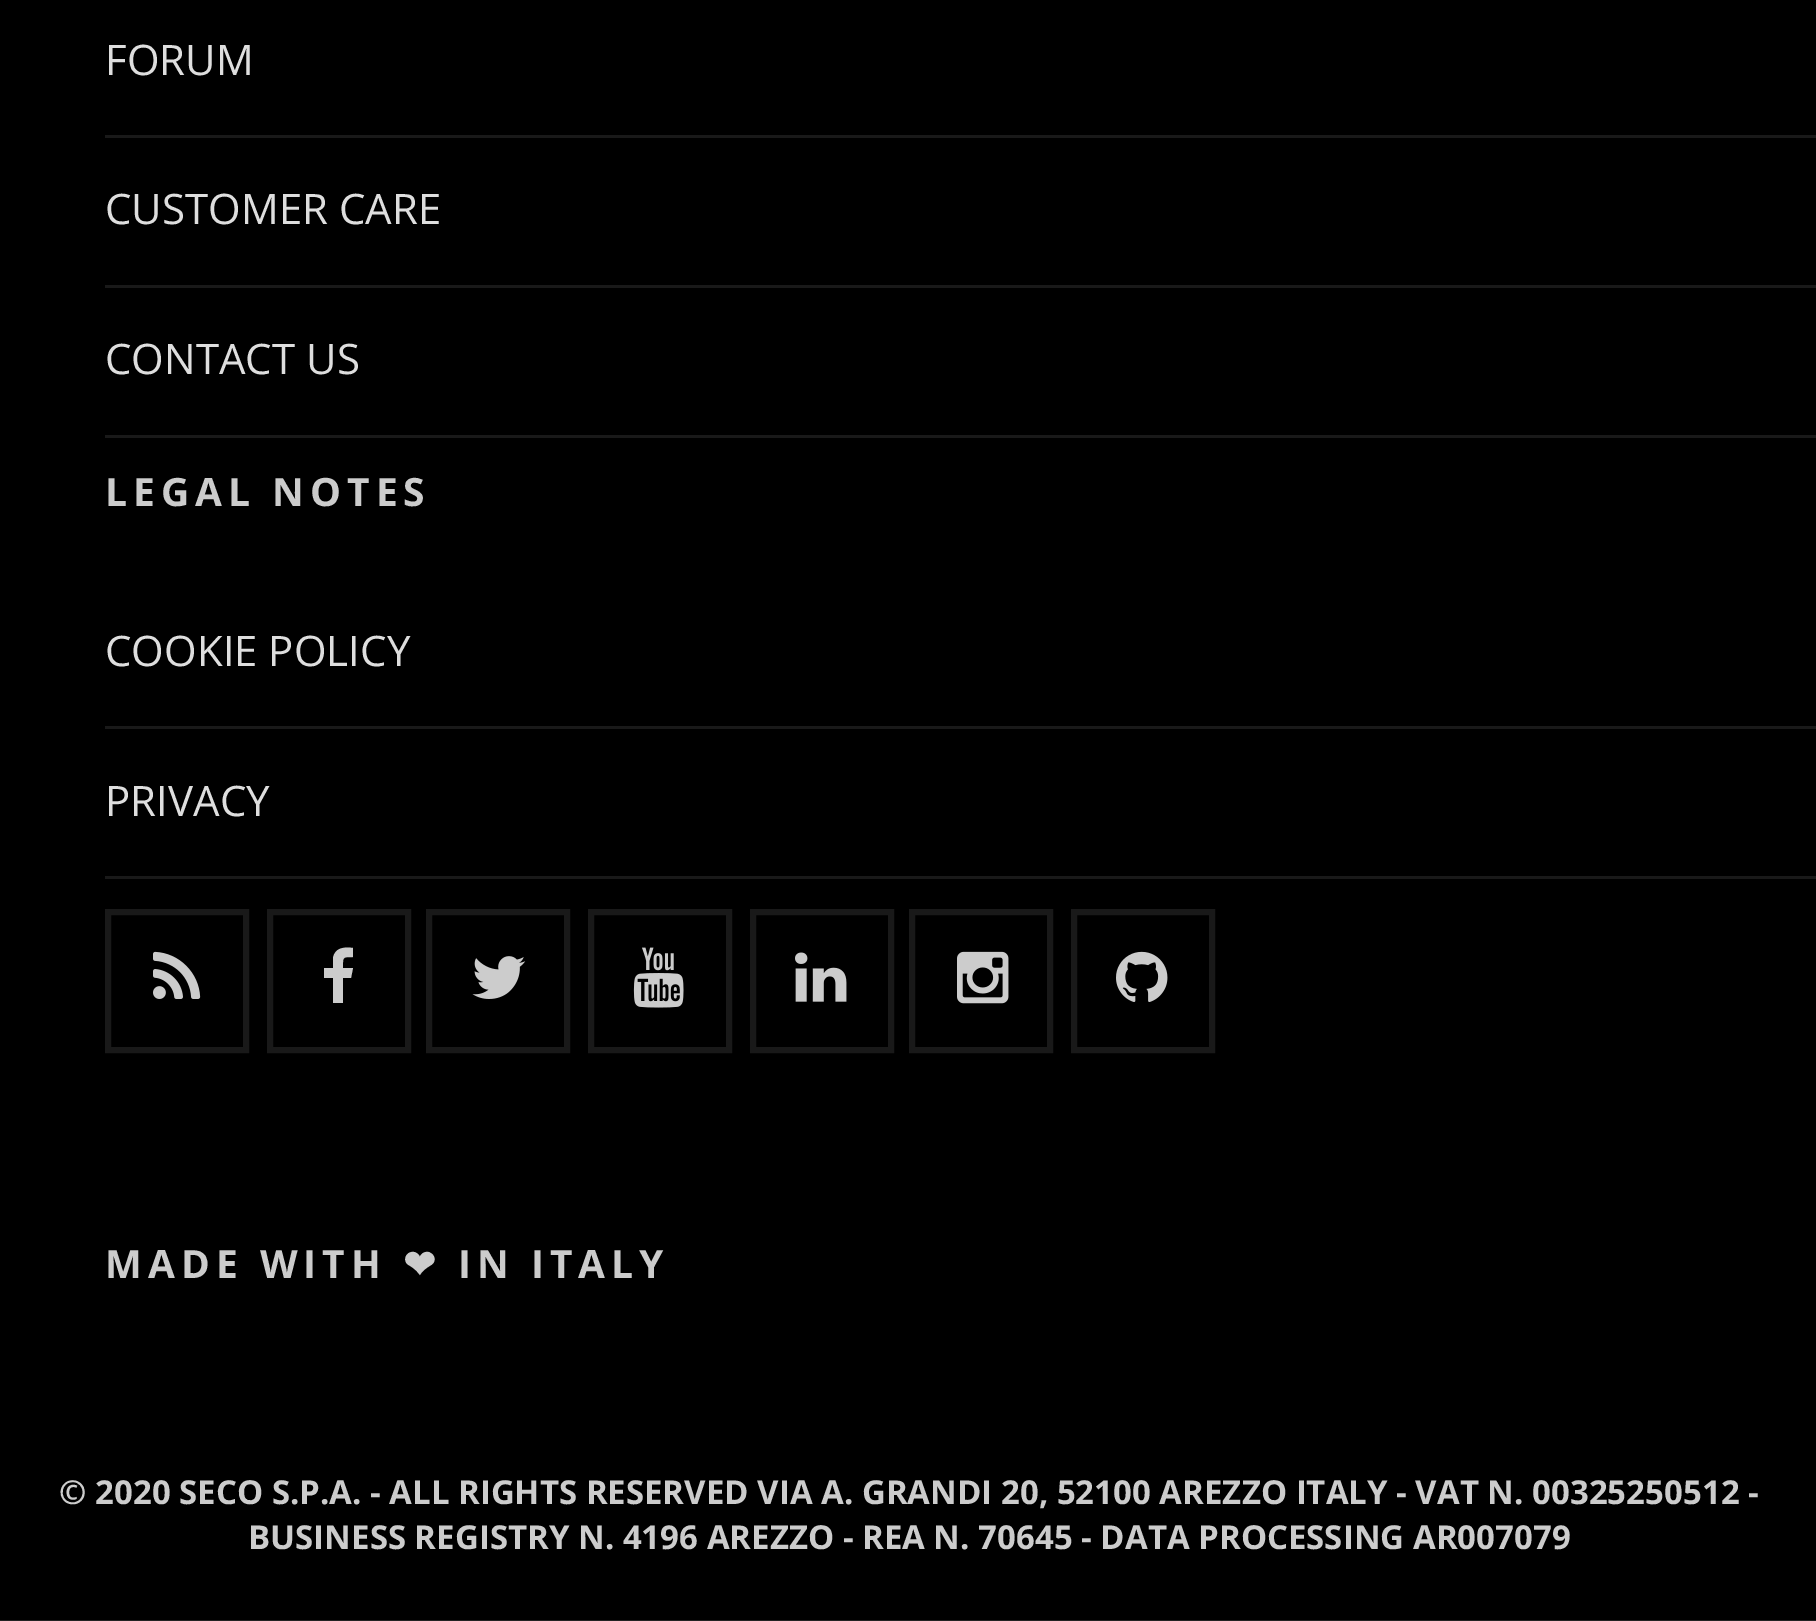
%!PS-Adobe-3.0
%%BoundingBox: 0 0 1816 1621
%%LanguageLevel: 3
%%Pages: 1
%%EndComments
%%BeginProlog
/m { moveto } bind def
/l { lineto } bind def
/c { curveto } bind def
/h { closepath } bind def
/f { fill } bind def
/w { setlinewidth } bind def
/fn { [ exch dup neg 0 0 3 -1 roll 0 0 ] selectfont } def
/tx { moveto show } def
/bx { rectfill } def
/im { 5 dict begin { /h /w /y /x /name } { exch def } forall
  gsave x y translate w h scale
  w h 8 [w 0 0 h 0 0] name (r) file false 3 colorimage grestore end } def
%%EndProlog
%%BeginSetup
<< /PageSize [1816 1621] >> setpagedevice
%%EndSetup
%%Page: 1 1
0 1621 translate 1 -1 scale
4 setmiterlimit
0.133 setgray
0 0 1816 1621 bx
0 setgray
0 0 1816 1620 bx
0.098 setgray
105 135 1711 3 bx
/OpenSans-Regular 42 fn
0.871 setgray
(FORUM) 105 75 tx
0.098 setgray
105 285 1711 3 bx
0.871 setgray
(CUSTOMER CARE) 105 224 tx
0.098 setgray
105 435 1711 3 bx
0.871 setgray
(CONTACT US) 105 374 tx
/OpenSans-Bold 39 fn
0.8 setgray
105 506 m 6 0 (LEGAL NOTES) ashow
0.098 setgray
105 726 1711 3 bx
/OpenSans-Regular 42 fn
0.871 setgray
(COOKIE POLICY) 105 666 tx
0.098 setgray
105 876 1711 3 bx
0.871 setgray
(PRIVACY) 105 816 tx
0.098 setgray
6 w
108 912 138 138 rectstroke
(image0.raw) 153 951 48 48 im
270 912 138 138 rectstroke
0.8 setgray
353 948 m 353 957 l 342 957 343 957 343 968 c 353 968 l 351 978 l 343 978 l 343 1003 l 333 1003 l 333 978 l 324 978 l 324 968 l 333 968 l 333 958 l 335 947 345 947 353 948 c h f
0.098 setgray
429 912 138 138 rectstroke
(image1.raw) 472 956 54 43 im
591 912 138 138 rectstroke
(image2.raw) 633 947 51 61 im
753 912 138 138 rectstroke
(image3.raw) 795 952 52 50 im
912 912 138 138 rectstroke
(image4.raw) 957 951 52 53 im
1074 912 138 138 rectstroke
(image5.raw) 1116 951 52 51 im
/OpenSans-Bold 39 fn
0.8 setgray
105 1278 m 6 0 (MADE WITH) ashow
/DejaVuSans-Bold 39 fn
403 1278 m 6 0 (❤) ashow
/OpenSans-Bold 39 fn
458 1278 m 6 0 (IN ITALY) ashow
/OpenSans-Bold 33 fn
(© 2020 SECO S.P.A. - ALL RIGHTS RESERVED VIA A. GRANDI 20, 52100 AREZZO ITALY - VAT N. 00325250512 -) 59 1504 tx
(BUSINESS REGISTRY N. 4196 AREZZO - REA N. 70645 - DATA PROCESSING AR007079) 248 1549 tx
showpage
%%EOF
